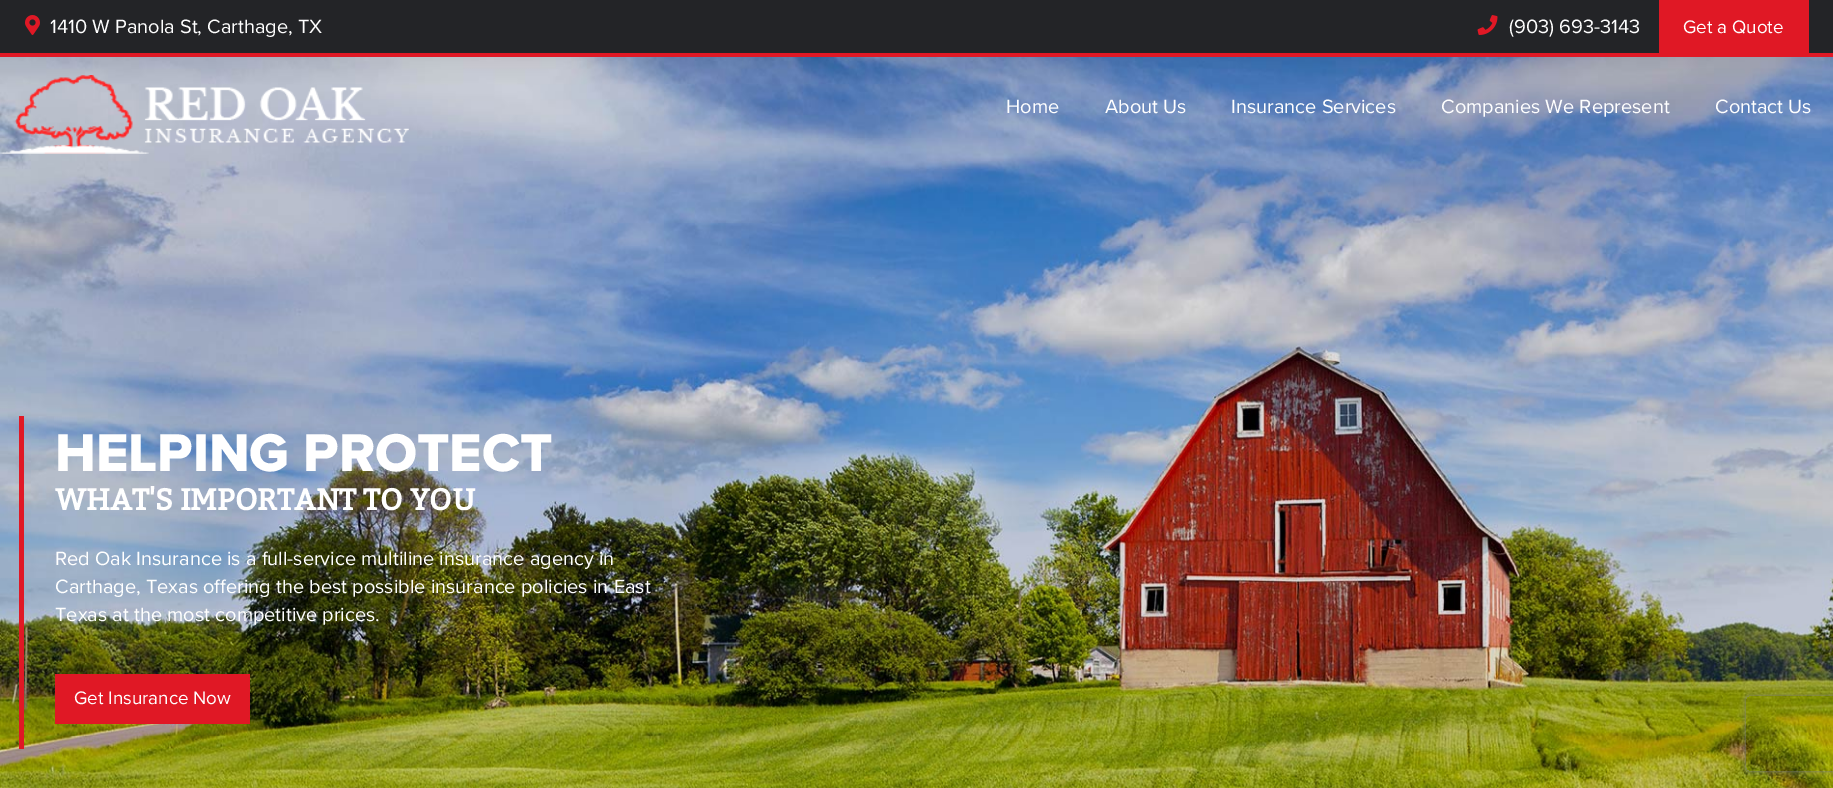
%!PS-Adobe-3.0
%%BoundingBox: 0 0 1833 788
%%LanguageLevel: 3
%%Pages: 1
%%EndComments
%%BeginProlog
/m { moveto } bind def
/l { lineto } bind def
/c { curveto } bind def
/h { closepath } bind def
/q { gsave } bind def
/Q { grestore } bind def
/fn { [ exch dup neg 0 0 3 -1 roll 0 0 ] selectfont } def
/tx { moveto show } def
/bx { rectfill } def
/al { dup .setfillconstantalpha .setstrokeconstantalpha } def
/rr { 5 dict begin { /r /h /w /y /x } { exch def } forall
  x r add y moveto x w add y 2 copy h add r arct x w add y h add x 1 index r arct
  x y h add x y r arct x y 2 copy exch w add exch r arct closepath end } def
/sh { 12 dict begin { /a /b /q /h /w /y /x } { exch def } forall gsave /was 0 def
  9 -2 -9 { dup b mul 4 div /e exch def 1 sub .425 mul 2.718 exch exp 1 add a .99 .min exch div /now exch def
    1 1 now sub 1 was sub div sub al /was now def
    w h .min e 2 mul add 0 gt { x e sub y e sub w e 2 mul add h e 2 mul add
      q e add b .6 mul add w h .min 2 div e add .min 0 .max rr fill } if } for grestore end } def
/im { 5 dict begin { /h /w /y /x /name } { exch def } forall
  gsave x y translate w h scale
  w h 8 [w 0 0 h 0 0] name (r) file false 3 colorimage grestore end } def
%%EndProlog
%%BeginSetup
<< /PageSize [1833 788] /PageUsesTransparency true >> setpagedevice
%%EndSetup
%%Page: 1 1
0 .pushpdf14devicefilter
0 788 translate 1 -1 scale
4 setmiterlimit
1 setgray
0 0 1833 788 bx
0.137 0.141 0.153 setrgbcolor
0 0 1833 53 bx
0.878 0.094 0.145 setrgbcolor
0 53 1833 4 bx
(image0.raw) 25 15 15 20 im
/ProximaNova-Regular 20 fn
1 setgray
(1410 W Panola St, Carthage, TX) 50 33 tx
(image1.raw) 1477 15 21 20 im
(\(903\) 693-3143) 1509 33 tx
0.878 0.094 0.145 setrgbcolor
1659 0 150 53 bx
/ProximaNova-Regular 18.75 fn
1 setgray
(Get a Quote) 1683 33 tx
(image3.raw) 0 57 1833 731 im
(image2.raw) 0 75 409 79 im
/ProximaNova-Regular 20 fn
(Home) 1006 113 tx
(About Us) 1105 113 tx
(Insurance Services) 1231 113 tx
(Companies We Represent) 1441 113 tx
(Contact Us) 1715 113 tx
0.878 0.094 0.145 setrgbcolor
19 416 5 333 bx
/ProximaNova-ExtraBold 55 fn
1 setgray
(HELPING PROTECT) 55 471 tx
/Bitter-Bold 30 fn
(WHAT'S IMPORTANT TO YOU) 55 510 tx
/ProximaNova-Regular 20 fn
(Red Oak Insurance is a full-service multiline insurance agency in) 55 565 tx
(Carthage, Texas offering the best possible insurance policies in East) 55 593 tx
(Texas at the most competitive prices.) 55 621 tx
0.878 0.094 0.145 setrgbcolor
55 674 195 50 bx
/ProximaNova-Regular 18.75 fn
1 setgray
(Get Insurance Now) 74 704 tx
q
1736 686 m 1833 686 l 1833 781 l 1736 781 l h 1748.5 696 m 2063.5 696 l 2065 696 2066 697 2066 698.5 c 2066 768.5 l 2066 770 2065 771 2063.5 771 c 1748.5 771 l 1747 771 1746 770 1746 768.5 c 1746 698.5 l 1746 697 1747 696 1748.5 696 c h eoclip newpath
0.502 setgray
1746 696 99 75 2.5 3 1 sh
Q
.poppdf14devicefilter showpage
%%EOF
